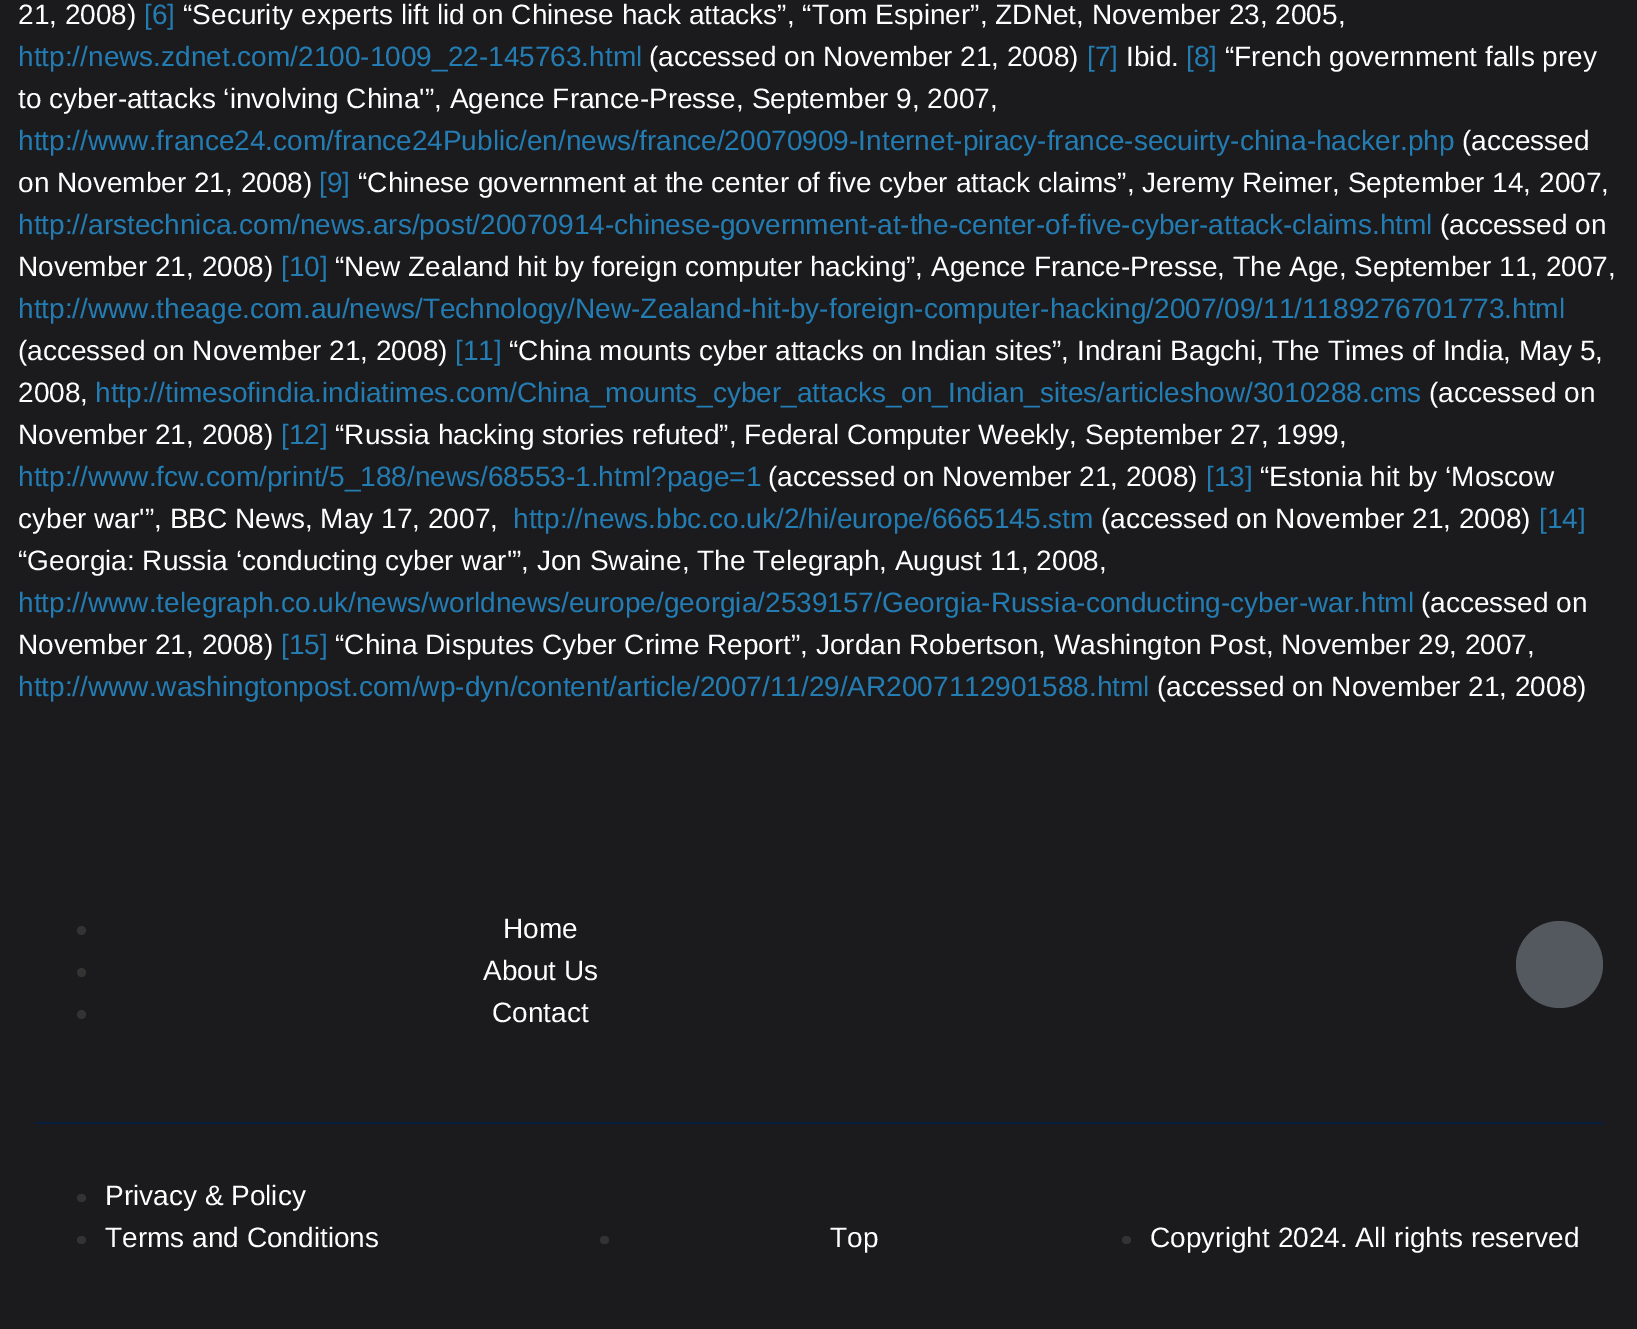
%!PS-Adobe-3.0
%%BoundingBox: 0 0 1637 1329
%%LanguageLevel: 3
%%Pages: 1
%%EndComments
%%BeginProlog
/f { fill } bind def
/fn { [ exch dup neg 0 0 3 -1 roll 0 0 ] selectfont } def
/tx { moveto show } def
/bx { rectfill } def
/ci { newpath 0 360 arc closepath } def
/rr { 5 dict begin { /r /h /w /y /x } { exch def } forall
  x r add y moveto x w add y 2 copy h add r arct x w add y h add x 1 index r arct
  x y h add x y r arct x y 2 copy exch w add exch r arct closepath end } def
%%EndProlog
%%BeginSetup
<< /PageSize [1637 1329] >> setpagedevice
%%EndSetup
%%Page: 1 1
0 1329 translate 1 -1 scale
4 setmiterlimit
0.106 0.106 0.118 setrgbcolor
0 0 1637 1329 bx
/LiberationSans-Regular 28 fn
1 setgray
(21, 2008\)) 18 24 tx
0.137 0.49 0.702 setrgbcolor
([6]) 144 24 tx
1 setgray
(“Security experts lift lid on Chinese hack attacks”, “Tom Espiner”, ZDNet, November 23, 2005,) 183 24 tx
0.137 0.49 0.702 setrgbcolor
(http://news.zdnet.com/2100-1009_22-145763.html) 18 66 tx
1 setgray
(\(accessed on November 21, 2008\)) 649 66 tx
0.137 0.49 0.702 setrgbcolor
([7]) 1087 66 tx
1 setgray
(Ibid.) 1126 66 tx
0.137 0.49 0.702 setrgbcolor
([8]) 1186 66 tx
1 setgray
(“French government falls prey) 1225 66 tx
(to cyber-attacks ‘involving China'”, Agence France-Presse, September 9, 2007,) 18 108 tx
0.137 0.49 0.702 setrgbcolor
(http://www.france24.com/france24Public/en/news/france/20070909-Internet-piracy-france-secuirty-china-hacker.php) 18 150 tx
1 setgray
(\(accessed) 1462 150 tx
(on November 21, 2008\)) 18 192 tx
0.137 0.49 0.702 setrgbcolor
([9]) 319 192 tx
1 setgray
(“Chinese government at the center of five cyber attack claims”, Jeremy Reimer, September 14, 2007,) 358 192 tx
0.137 0.49 0.702 setrgbcolor
(http://arstechnica.com/news.ars/post/20070914-chinese-government-at-the-center-of-five-cyber-attack-claims.html) 18 234 tx
1 setgray
(\(accessed on) 1440 234 tx
(November 21, 2008\)) 18 276 tx
0.137 0.49 0.702 setrgbcolor
([10]) 281 276 tx
1 setgray
(“New Zealand hit by foreign computer hacking”, Agence France-Presse, The Age, September 11, 2007,) 335 276 tx
0.137 0.49 0.702 setrgbcolor
(http://www.theage.com.au/news/Technology/New-Zealand-hit-by-foreign-computer-hacking/2007/09/11/1189276701773.html) 18 318 tx
1 setgray
(\(accessed on November 21, 2008\)) 18 360 tx
0.137 0.49 0.702 setrgbcolor
([11]) 455 360 tx
1 setgray
(“China mounts cyber attacks on Indian sites”, Indrani Bagchi, The Times of India, May 5,) 509 360 tx
(2008,) 18 402 tx
0.137 0.49 0.702 setrgbcolor
(http://timesofindia.indiatimes.com/China_mounts_cyber_attacks_on_Indian_sites/articleshow/3010288.cms) 95 402 tx
1 setgray
(\(accessed on) 1429 402 tx
(November 21, 2008\)) 18 444 tx
0.137 0.49 0.702 setrgbcolor
([12]) 281 444 tx
1 setgray
(“Russia hacking stories refuted”, Federal Computer Weekly, September 27, 1999,) 335 444 tx
0.137 0.49 0.702 setrgbcolor
(http://www.fcw.com/print/5_188/news/68553-1.html?page=1) 18 486 tx
1 setgray
(\(accessed on November 21, 2008\)) 768 486 tx
0.137 0.49 0.702 setrgbcolor
([13]) 1206 486 tx
1 setgray
(“Estonia hit by ‘Moscow) 1260 486 tx
(cyber war'”, BBC News, May 17, 2007,) 18 528 tx
0.137 0.49 0.702 setrgbcolor
(http://news.bbc.co.uk/2/hi/europe/6665145.stm) 513 528 tx
1 setgray
(\(accessed on November 21, 2008\)) 1101 528 tx
0.137 0.49 0.702 setrgbcolor
([14]) 1539 528 tx
1 setgray
(“Georgia: Russia ‘conducting cyber war'”, Jon Swaine, The Telegraph, August 11, 2008,) 18 570 tx
0.137 0.49 0.702 setrgbcolor
(http://www.telegraph.co.uk/news/worldnews/europe/georgia/2539157/Georgia-Russia-conducting-cyber-war.html) 18 612 tx
1 setgray
(\(accessed on) 1421 612 tx
(November 21, 2008\)) 18 654 tx
0.137 0.49 0.702 setrgbcolor
([15]) 281 654 tx
1 setgray
(“China Disputes Cyber Crime Report”, Jordan Robertson, Washington Post, November 29, 2007,) 335 654 tx
0.137 0.49 0.702 setrgbcolor
(http://www.washingtonpost.com/wp-dyn/content/article/2007/11/29/AR2007112901588.html) 18 696 tx
1 setgray
(\(accessed on November 21, 2008\)) 1157 696 tx
0.2 setgray
81.5 930.5 4.5 ci f
1 setgray
(Home) 503 938 tx
0.2 setgray
81.5 972.5 4.5 ci f
1 setgray
(About Us) 483 980 tx
0.2 setgray
81.5 1014.5 4.5 ci f
1 setgray
(Contact) 492 1022 tx
0.329 0.349 0.373 setrgbcolor
1559.5 964.5 43.5 ci f
0.024 0.122 0.243 setrgbcolor
35 1122 1568 2 bx
0.2 setgray
77 1194 9 8 4 rr f
1 setgray
(Privacy & Policy) 105 1205 tx
0.2 setgray
77 1236 9 8 4 rr f
1 setgray
(Terms and Conditions) 105 1247 tx
0.2 setgray
600 1236 9 8 4 rr f
1 setgray
(Top) 830 1247 tx
0.2 setgray
1122 1236 9 8 4 rr f
1 setgray
(Copyright 2024. All rights reserved) 1150 1247 tx
showpage
%%EOF
